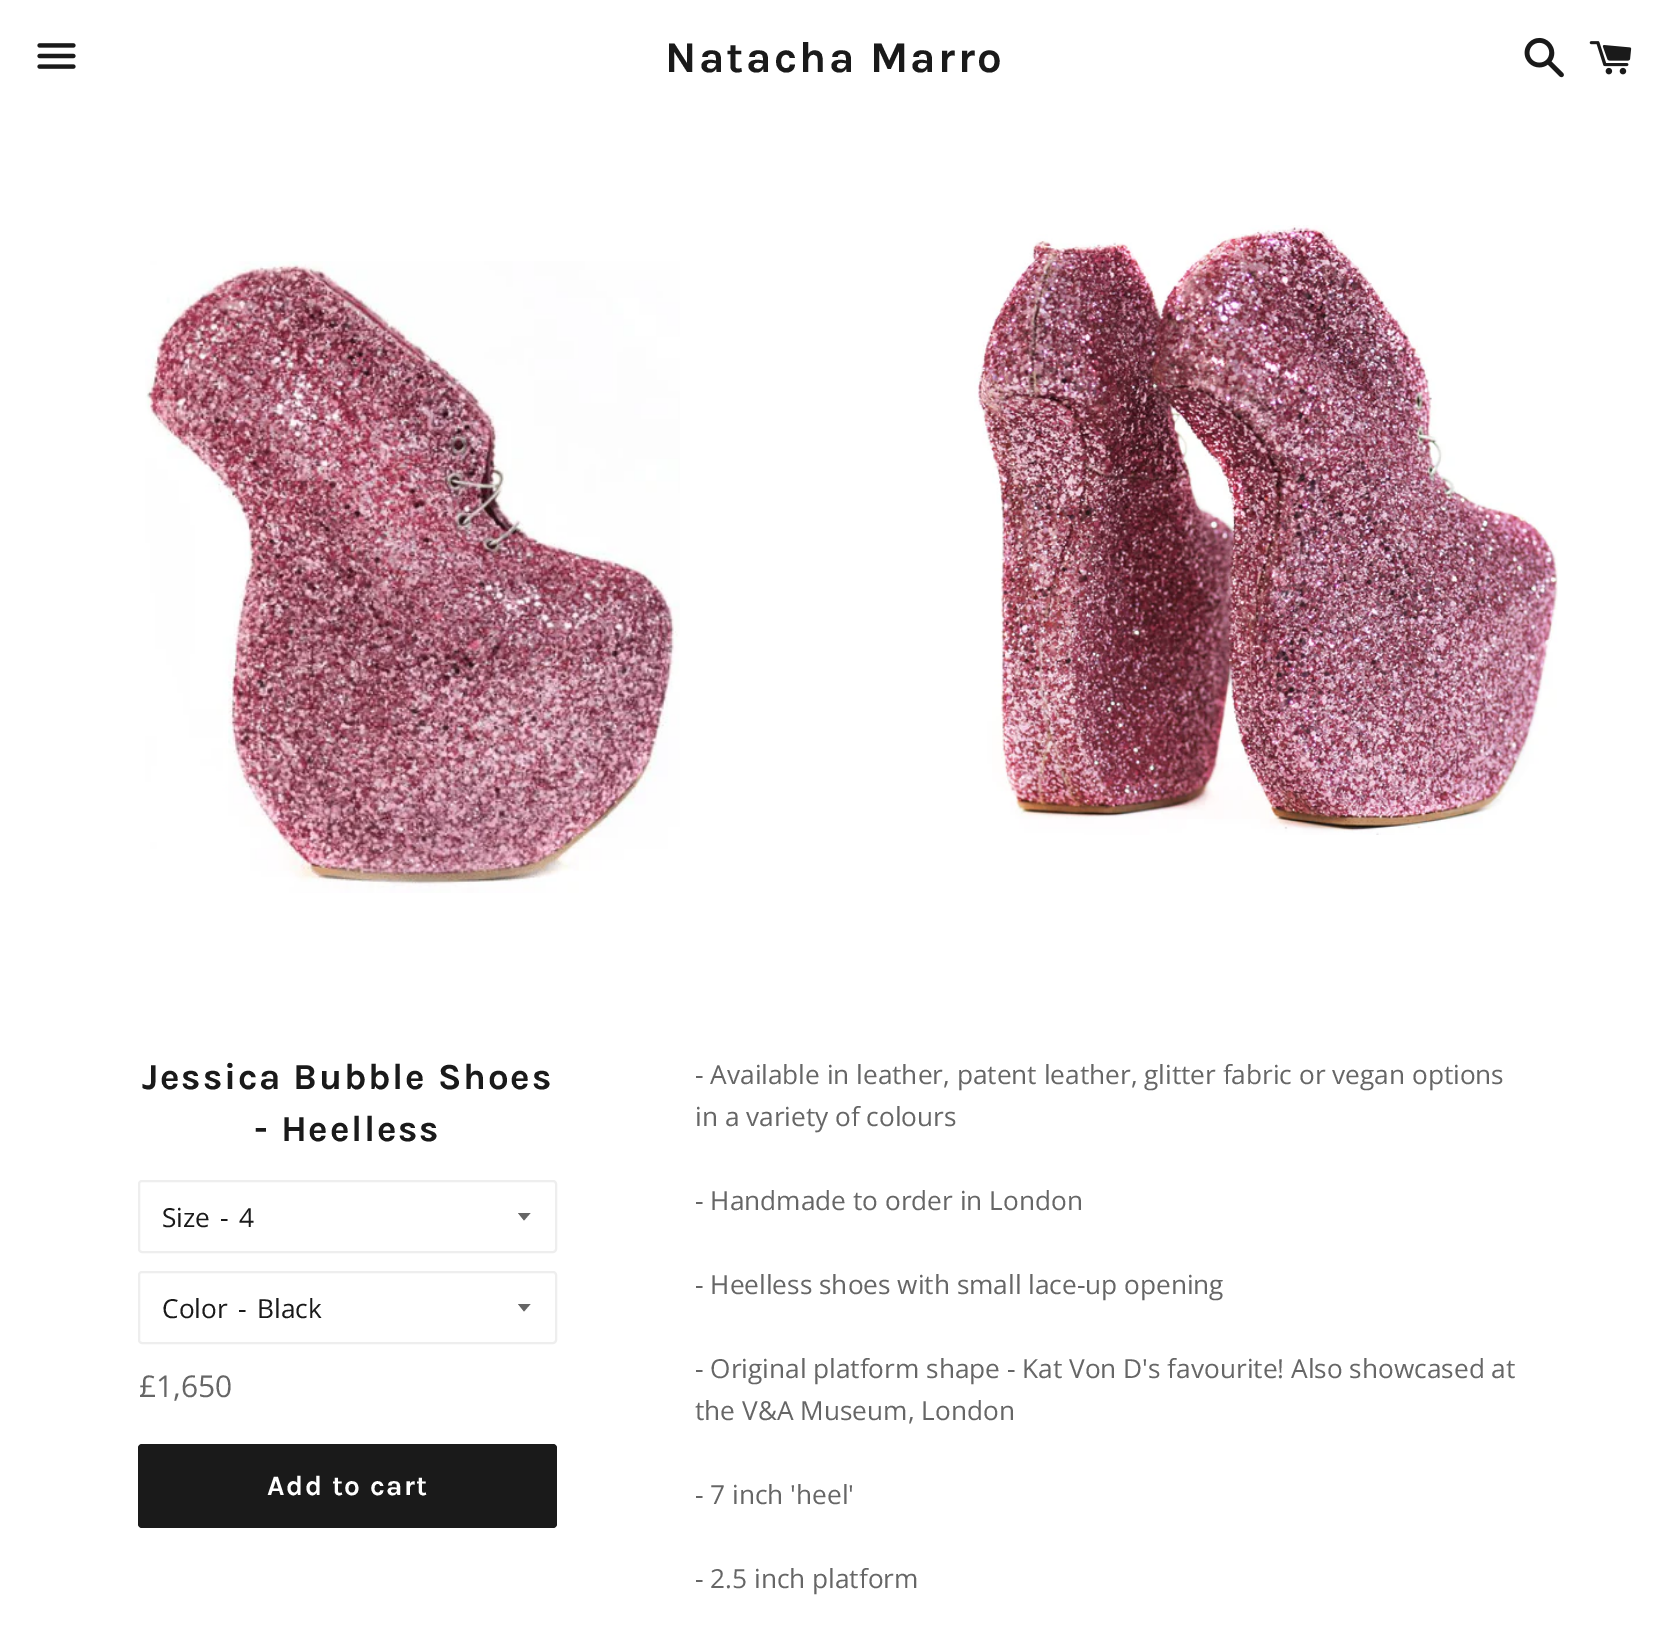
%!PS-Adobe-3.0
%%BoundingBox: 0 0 1667 1638
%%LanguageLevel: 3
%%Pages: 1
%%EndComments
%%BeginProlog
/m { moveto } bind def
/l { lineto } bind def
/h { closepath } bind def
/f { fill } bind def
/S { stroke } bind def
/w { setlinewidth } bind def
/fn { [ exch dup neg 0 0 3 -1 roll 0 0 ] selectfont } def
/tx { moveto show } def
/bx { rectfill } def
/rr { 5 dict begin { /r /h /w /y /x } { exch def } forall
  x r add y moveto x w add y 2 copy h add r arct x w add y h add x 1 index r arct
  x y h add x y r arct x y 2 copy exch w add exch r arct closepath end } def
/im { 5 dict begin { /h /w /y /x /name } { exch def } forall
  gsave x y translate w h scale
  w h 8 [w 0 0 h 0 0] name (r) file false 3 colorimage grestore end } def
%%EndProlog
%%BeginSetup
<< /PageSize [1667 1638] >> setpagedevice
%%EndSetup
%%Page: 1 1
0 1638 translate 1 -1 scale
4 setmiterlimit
1 setgray
0 0 1667 1638 bx
(image0.raw) 37 43 39 26 im
/Karla-Bold 43.75 fn
0.102 setgray
665 72 m 2.25 0 (Natacha Marro) ashow
(image1.raw) 1524 37 40 41 im
(image2.raw) 1589 41 43 34 im
(image3.raw) 145 261 535 632 im
(image4.raw) 974 225 584 610 im
/Karla-Bold 36.75 fn
142 1089 m 1.8 0 (Jessica Bubble Shoes) ashow
254 1141 m 1.8 0 (- Heelless) ashow
0.933 setgray
2 w
139 1181 417 71 3 rr S
/OpenSans-Regular 26.25 fn
0.102 setgray
(Size) 162 1227 tx
(-) 220 1227 tx
0.4 setgray
518 1213 m 524 1220.5 l 530.5 1213 l h f
0.102 setgray
(4) 239 1227 tx
0.933 setgray
139 1272 417 71 3 rr S
0.102 setgray
(Color) 162 1318 tx
(-) 238 1318 tx
0.4 setgray
518 1304 m 524 1311.5 l 530.5 1304 l h f
0.102 setgray
(Black) 257 1318 tx
/OpenSans-Regular 30 fn
0.4 setgray
(£1,650) 139 1397 tx
0.102 setgray
138 1444 419 84 4 rr f
/Karla-Bold 28 fn
1 setgray
267 1495 m 1.4 0 (Add to cart) ashow
/OpenSans-Regular 26.25 fn
0.4 setgray
(- Available in leather, patent leather, glitter fabric or vegan options) 695 1084 tx
(in a variety of colours) 695 1126 tx
(- Handmade to order in London) 695 1210 tx
(- Heelless shoes with small lace-up opening) 695 1294 tx
(- Original platform shape - Kat Von D's favourite! Also showcased at) 695 1378 tx
(the V&A Museum, London) 695 1420 tx
(- 7 inch 'heel') 695 1504 tx
(- 2.5 inch platform) 695 1588 tx
showpage
%%EOF
